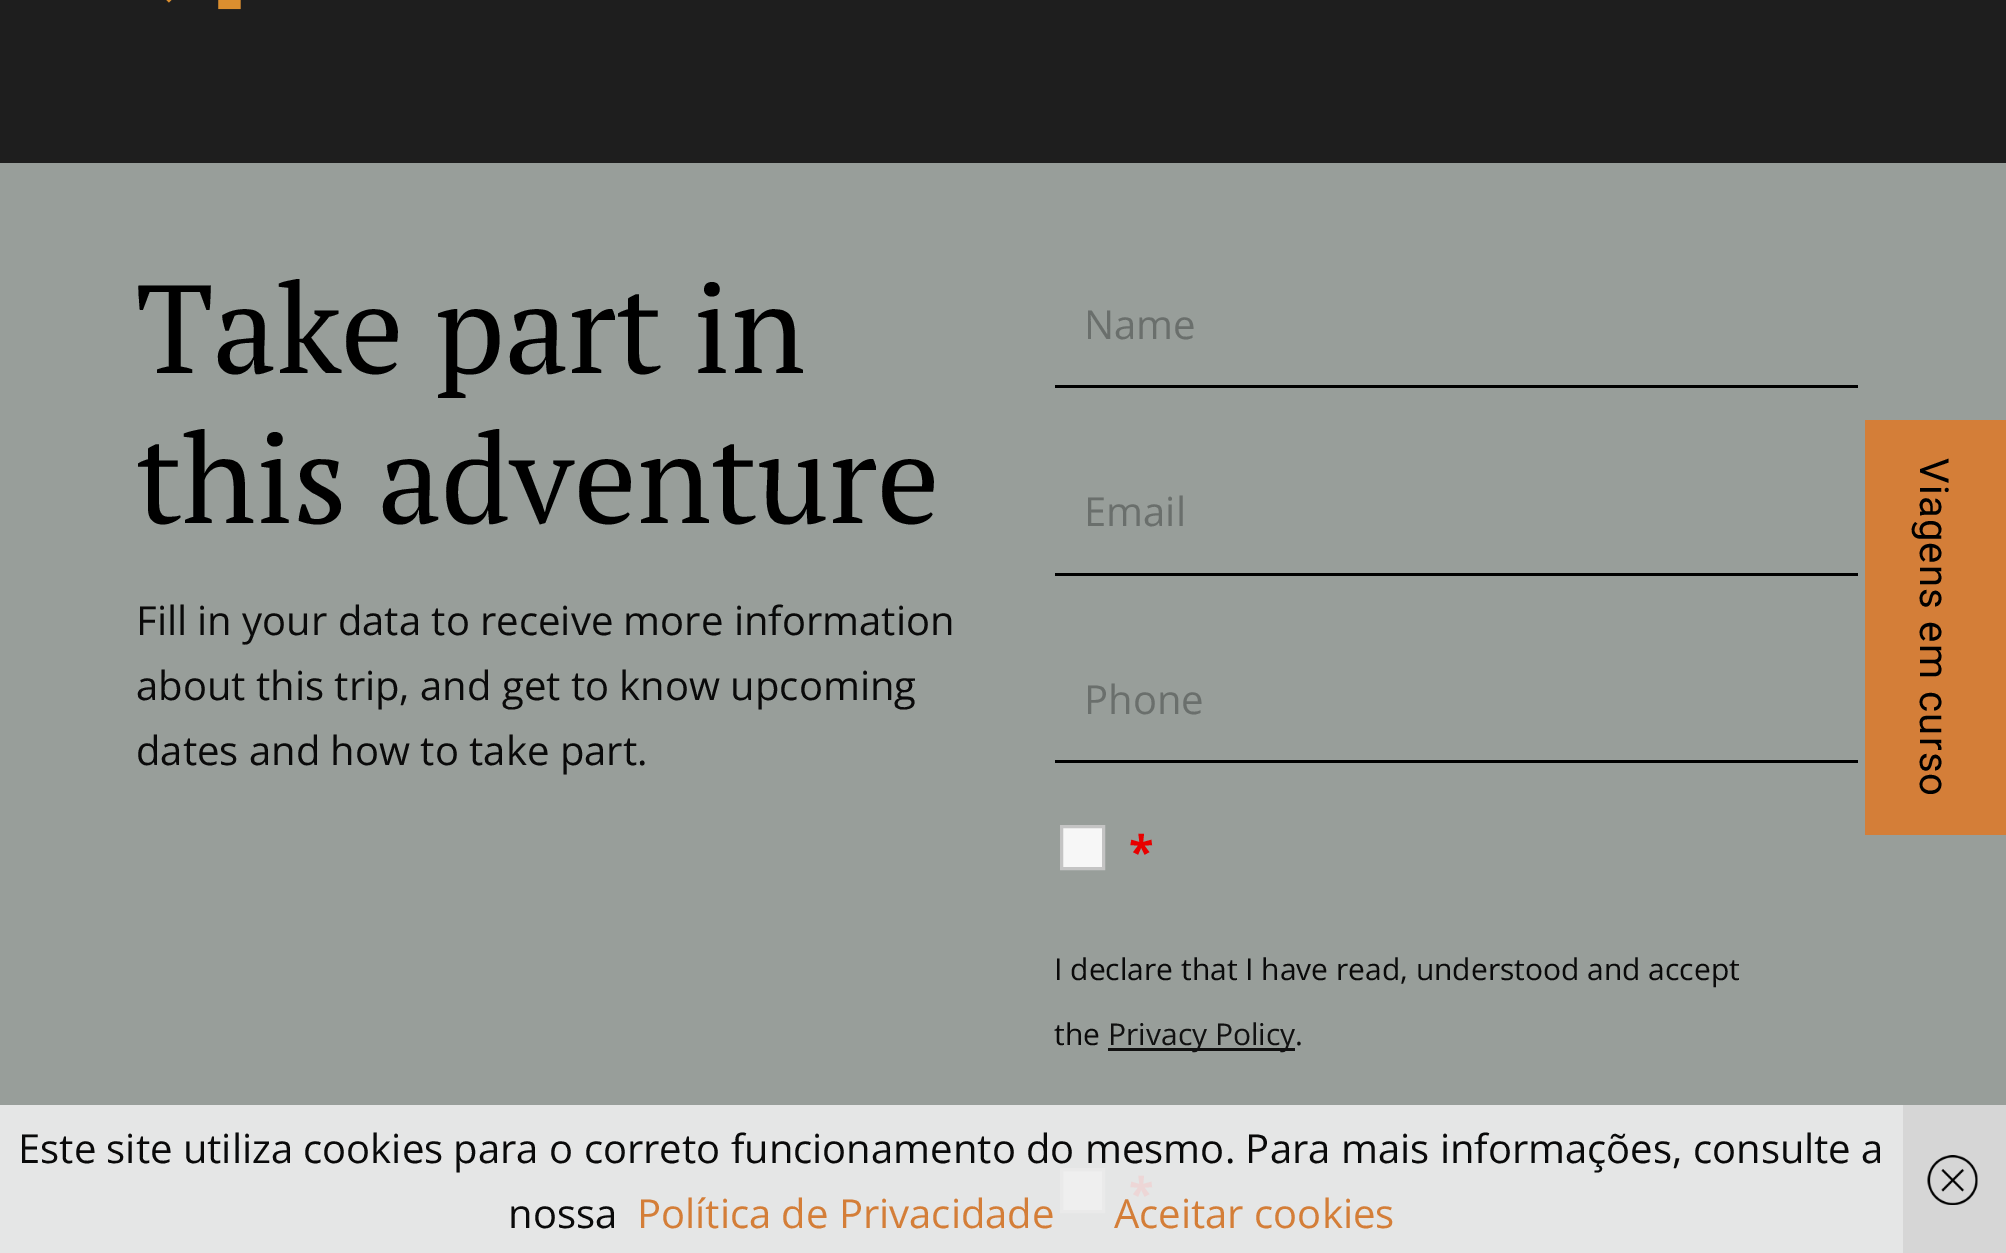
%!PS-Adobe-3.0
%%BoundingBox: 0 0 2006 1253
%%LanguageLevel: 3
%%Pages: 1
%%EndComments
%%BeginProlog
/m { moveto } bind def
/l { lineto } bind def
/h { closepath } bind def
/f { fill } bind def
/S { stroke } bind def
/q { gsave } bind def
/Q { grestore } bind def
/w { setlinewidth } bind def
/fn { [ exch dup neg 0 0 3 -1 roll 0 0 ] selectfont } def
/tx { moveto show } def
/bx { rectfill } def
/im { 5 dict begin { /h /w /y /x /name } { exch def } forall
  gsave x y translate w h scale
  w h 8 [w 0 0 h 0 0] name (r) file false 3 colorimage grestore end } def
%%EndProlog
%%BeginSetup
<< /PageSize [2006 1253] >> setpagedevice
%%EndSetup
%%Page: 1 1
0 1253 translate 1 -1 scale
4 setmiterlimit
0.118 setgray
0 0 2006 1253 bx
(image0.raw) 166 0 75 10 im
0.596 0.62 0.604 setrgbcolor
0 163 2006 942 bx
0.898 0.902 0.902 setrgbcolor
0 1105 1903 148 bx
/PTSerif-Regular 125 fn
0 setgray
(Take part in) 136 373 tx
(this adventure) 136 523 tx
/OpenSans-Regular 40 fn
0.039 setgray
(Fill in your data to receive more information) 136 635 tx
(about this trip, and get to know upcoming) 136 700 tx
(dates and how to take part.) 136 765 tx
0 setgray
1055 385 803 3 bx
0.416 0.435 0.424 setrgbcolor
(Name) 1084 339 tx
0 setgray
1055 573 803 3 bx
0.416 0.435 0.424 setrgbcolor
(Email) 1084 526 tx
0 setgray
1055 760 803 3 bx
0.416 0.435 0.424 setrgbcolor
(Phone) 1084 714 tx
0.969 setgray
1061.5 826.5 m 1103.5 826.5 l 1103.5 868.5 l 1061.5 868.5 l h q f Q
0.769 setgray
3 w
S
/OpenSans-Bold 45 fn
0.91 0 0 setrgbcolor
(*) 1129 868 tx
/OpenSans-Regular 30 fn
0.039 setgray
(I declare that I have read, understood and accept) 1054 980 tx
(the) 1054 1045 tx
0.067 setgray
1108 1048 187 3 bx
(Privacy Policy) 1108 1045 tx
0.039 setgray
(.) 1295 1045 tx
0.937 setgray
1061.5 1169.5 m 1103.5 1169.5 l 1103.5 1211.5 l 1061.5 1211.5 l h q f Q
0.918 setgray
S
/OpenSans-Bold 45 fn
0.929 0.839 0.839 setrgbcolor
(*) 1129 1210 tx
0.831 0.494 0.22 setrgbcolor
1865 420 141 415 bx
/Roboto-Regular 40 fn
0 setgray
q 1920 458 translate 90 rotate 0 0 m 1.25 0 (Viagens em curso) ashow Q
/OpenSans-Regular 40 fn
0.039 setgray
(Este site utiliza cookies para o correto funcionamento do mesmo. Para mais informações, consulte a) 18 1163 tx
(nossa) 508 1228 tx
0.831 0.494 0.22 setrgbcolor
(Política de Privacidade) 637 1228 tx
(Aceitar cookies) 1114 1228 tx
0.839 setgray
1903 1105 103 148 bx
(image1.raw) 1927 1155 51 50 im
showpage
%%EOF
